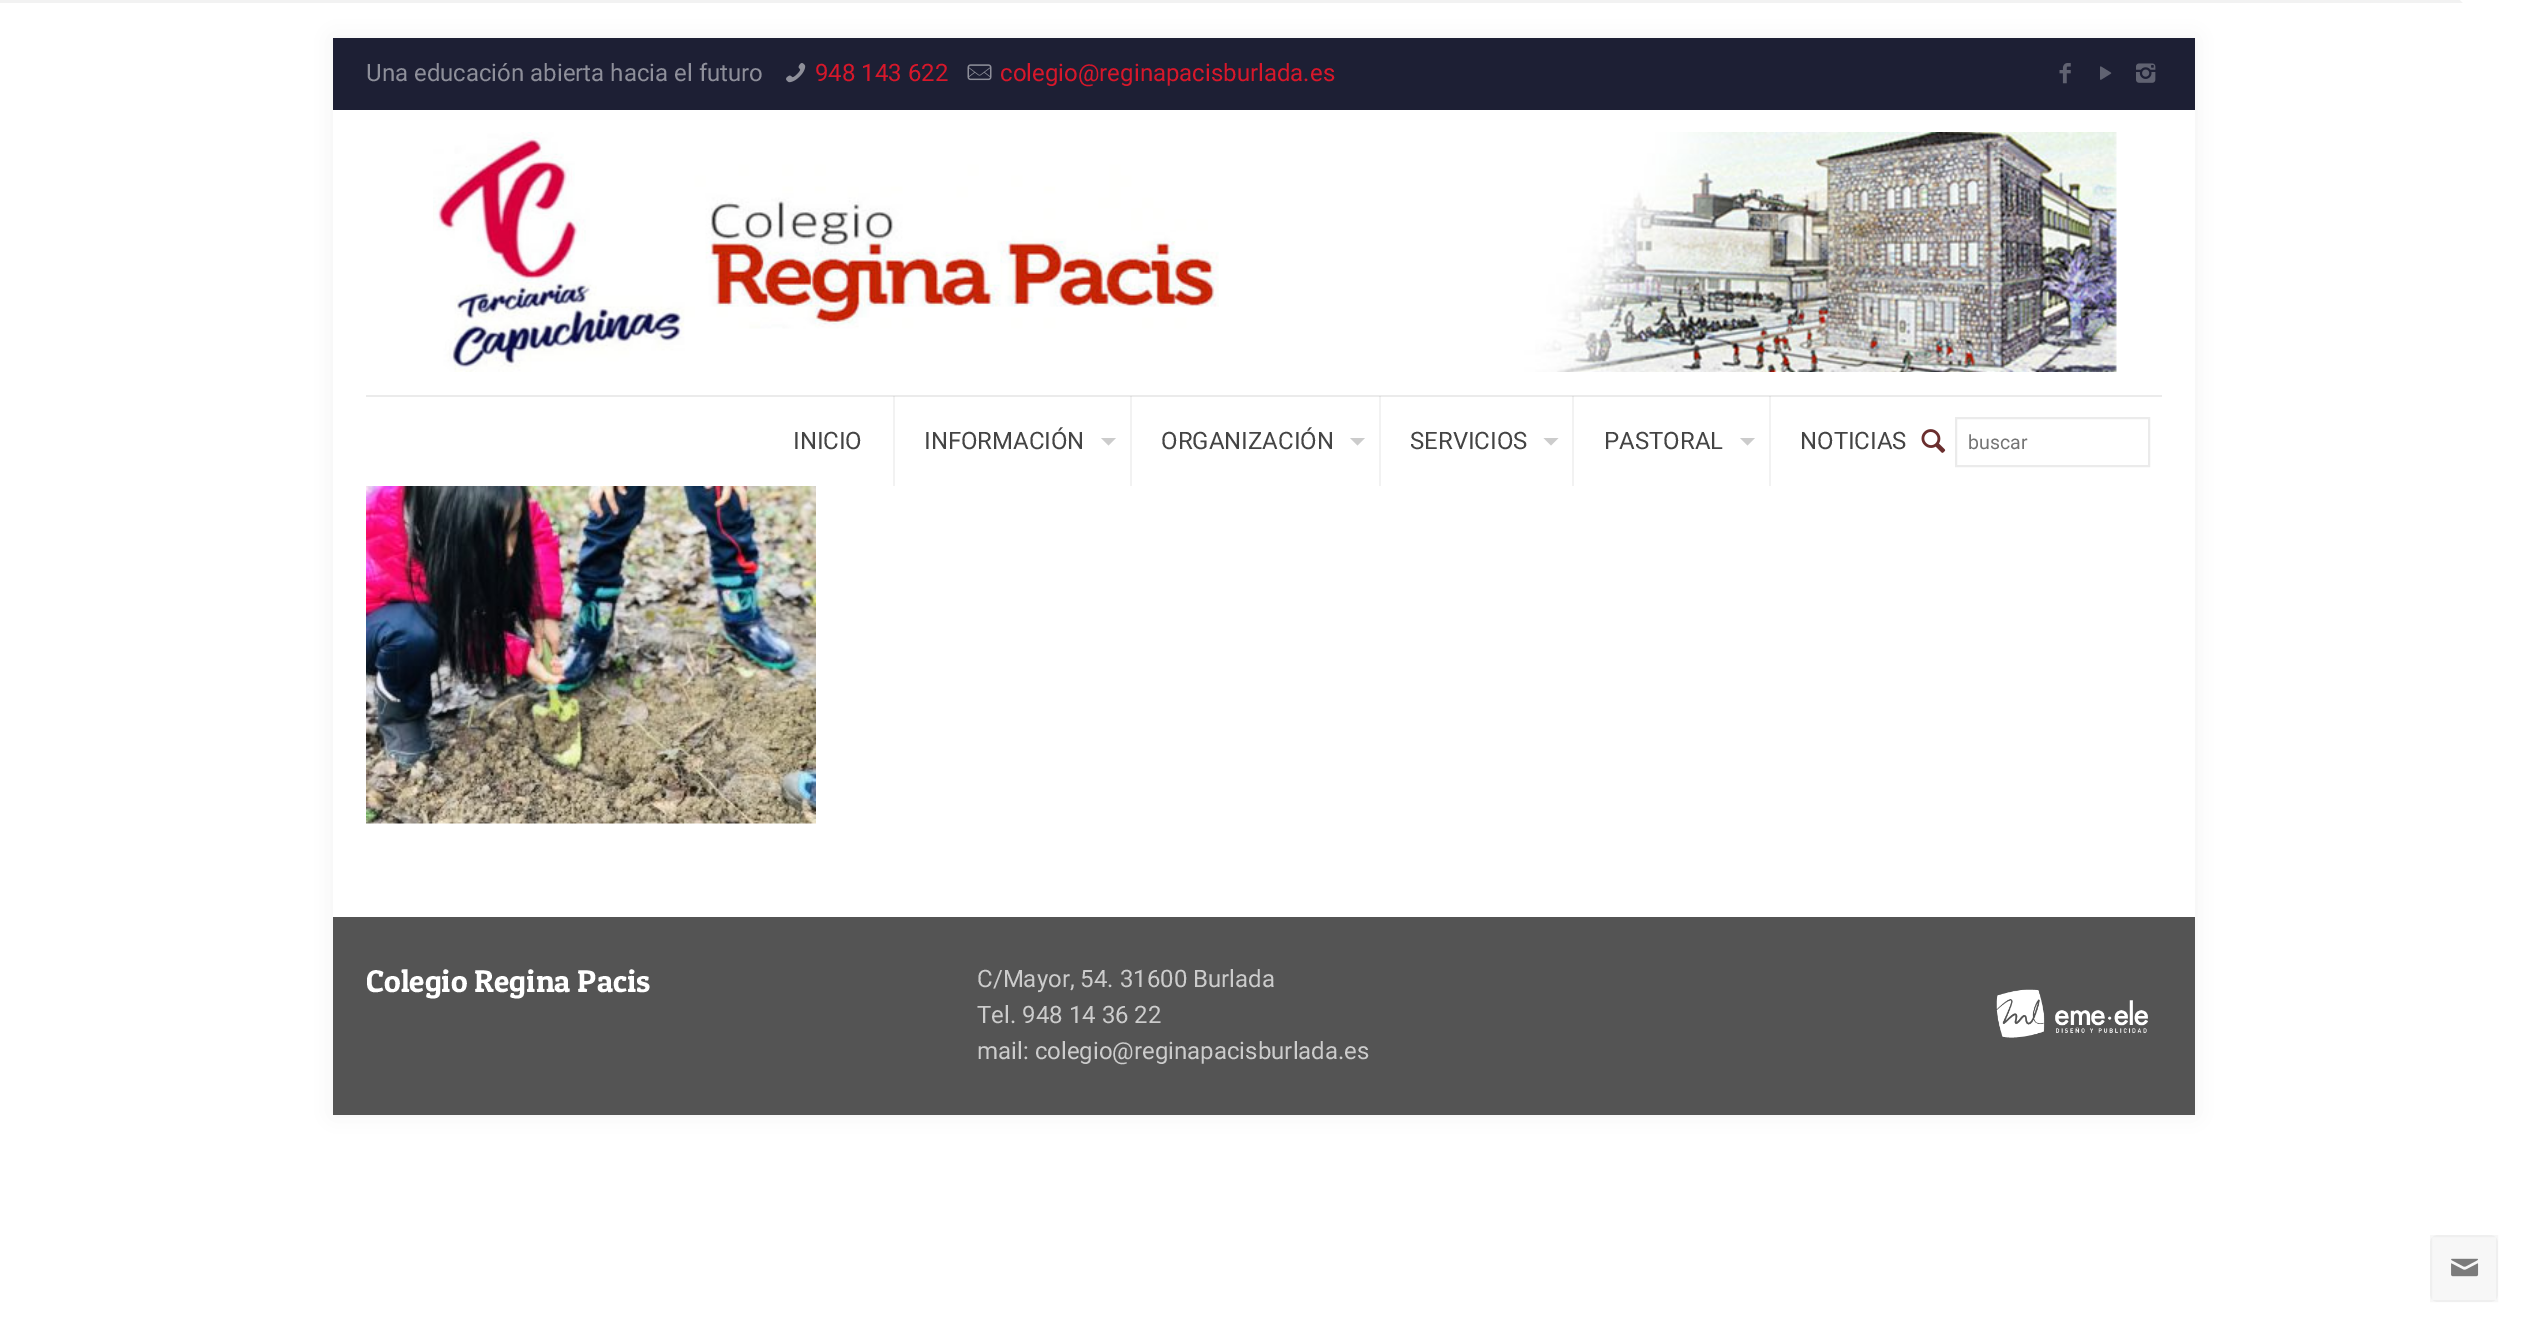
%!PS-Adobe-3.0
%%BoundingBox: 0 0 2527 1334
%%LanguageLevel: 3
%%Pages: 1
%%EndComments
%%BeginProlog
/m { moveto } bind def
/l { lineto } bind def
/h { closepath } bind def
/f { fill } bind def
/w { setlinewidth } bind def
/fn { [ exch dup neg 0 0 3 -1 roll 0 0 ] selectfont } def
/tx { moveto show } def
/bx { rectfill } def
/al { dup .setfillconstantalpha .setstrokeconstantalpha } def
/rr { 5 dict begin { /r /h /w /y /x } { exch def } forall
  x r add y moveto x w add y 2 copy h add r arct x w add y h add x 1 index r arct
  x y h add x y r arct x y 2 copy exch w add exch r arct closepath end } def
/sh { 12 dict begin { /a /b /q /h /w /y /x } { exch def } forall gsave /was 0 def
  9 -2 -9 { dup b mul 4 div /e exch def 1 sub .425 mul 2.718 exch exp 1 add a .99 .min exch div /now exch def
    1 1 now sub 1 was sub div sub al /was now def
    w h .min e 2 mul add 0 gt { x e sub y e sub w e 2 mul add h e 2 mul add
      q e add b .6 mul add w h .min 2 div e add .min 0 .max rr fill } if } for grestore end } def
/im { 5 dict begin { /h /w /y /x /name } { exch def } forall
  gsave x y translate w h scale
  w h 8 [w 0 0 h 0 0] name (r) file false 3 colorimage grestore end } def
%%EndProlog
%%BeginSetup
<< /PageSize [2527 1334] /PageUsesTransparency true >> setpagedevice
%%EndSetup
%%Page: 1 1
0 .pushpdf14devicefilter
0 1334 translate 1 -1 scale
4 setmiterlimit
1 setgray
0 0 2527 1334 bx
0.949 setgray
0 0 2463 3 bx
1 setgray
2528 0 m 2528 68 l 2460 0 l h f
0 setgray
333 38 1862 1077 0 11 0.06 sh
1 setgray
333 110 1862 807 bx
0.949 setgray
1769 396 2 90 bx
1572 396 2 90 bx
1379 396 2 90 bx
1130 396 2 90 bx
893 396 2 90 bx
0.114 0.122 0.204 setrgbcolor
333 38 1862 72 bx
/Roboto-Regular 24 fn
0.557 0.561 0.604 setrgbcolor
(Una educación abierta hacia el futuro) 366 81 tx
(image0.raw) 786 63 20 20 im
0.847 0.09 0.165 setrgbcolor
(948 143 622) 815 81 tx
(image1.raw) 967 64 25 17 im
(colegio@reginapacisburlada.es) 1000 81 tx
(image2.raw) 2059 63 12 21 im
(image3.raw) 2100 66 12 14 im
(image4.raw) 2136 63 20 20 im
0.922 setgray
366 395 1796 2 bx
0.875 setgray
1769 396 2 1 bx
1572 396 2 1 bx
1379 396 2 1 bx
1130 396 2 1 bx
893 396 2 1 bx
(image5.raw) 433 132 1684 240 im
0.267 setgray
(INICIO) 793 449 tx
(INFORMACIÓN) 924 449 tx
0.8 setgray
1101 438 m 1116 438 l 1108.5 445.5 l h f
0.267 setgray
(ORGANIZACIÓN) 1161 449 tx
0.8 setgray
1350 438 m 1365 438 l 1357.5 445.5 l h f
0.267 setgray
(SERVICIOS) 1410 449 tx
0.8 setgray
1543.5 438 m 1558.5 438 l 1551 445.5 l h f
0.267 setgray
(PASTORAL) 1604 449 tx
0.8 setgray
1740 438 m 1755 438 l 1747.5 445.5 l h f
0.267 setgray
(NOTICIAS) 1800 449 tx
(image6.raw) 1921 429 25 24 im
0.922 setgray
2 w
1956 418 193 48 rectstroke
/Roboto-Regular 19.5 fn
0.459 setgray
(buscar) 1968 449 tx
(image7.raw) 366 486 450 338 im
0.329 setgray
333 917 1862 198 bx
/PatuaOne-Regular 31.5 fn
1 setgray
(Colegio Regina Pacis) 366 992 tx
/Roboto-Regular 24 fn
0.8 setgray
(C/Mayor, 54. 31600 Burlada) 977 987 tx
(Tel. 948 14 36 22) 977 1023 tx
(mail: colegio@reginapacisburlada.es) 977 1059 tx
(image8.raw) 1996 989 152 49 im
0.969 setgray
2430 1235 68 67 8 rr f
0.03 al
0 setgray
2431 1236 66 65 rectstroke
1 al
(image9.raw) 2451 1258 28 19 im
.poppdf14devicefilter showpage
%%EOF
